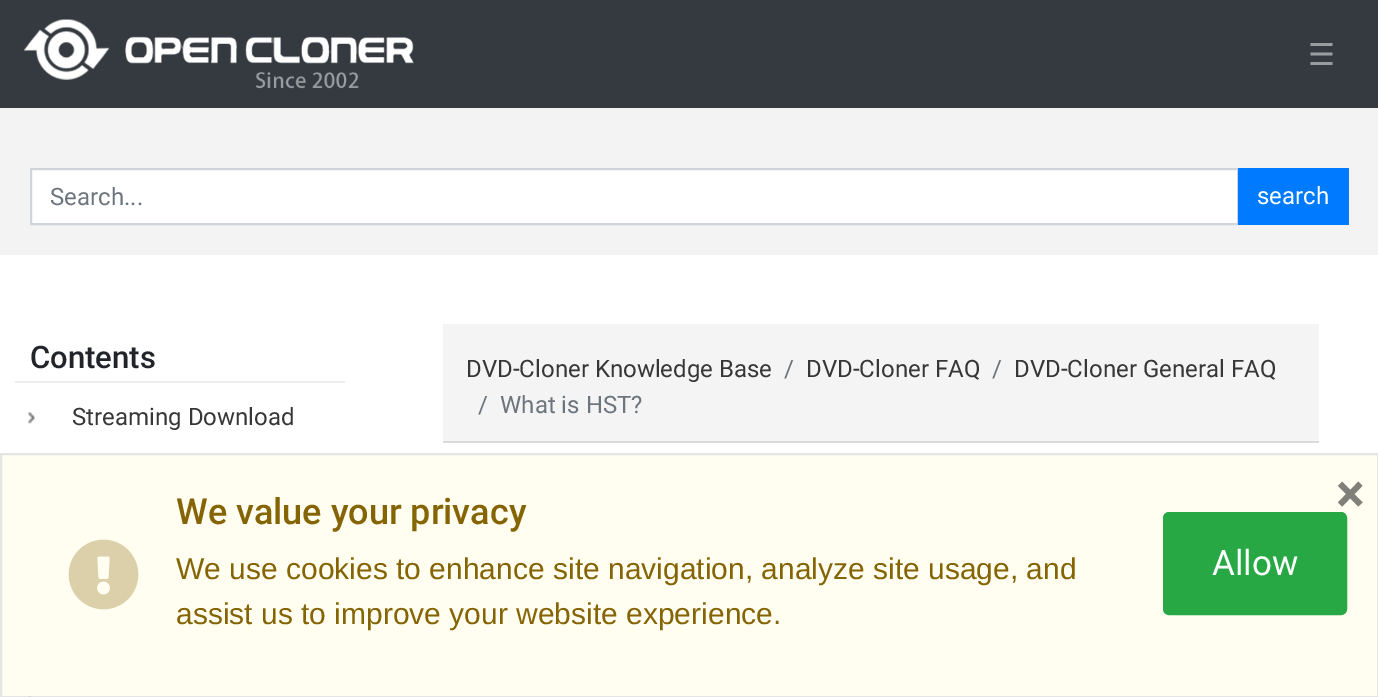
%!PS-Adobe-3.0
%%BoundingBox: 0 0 1378 697
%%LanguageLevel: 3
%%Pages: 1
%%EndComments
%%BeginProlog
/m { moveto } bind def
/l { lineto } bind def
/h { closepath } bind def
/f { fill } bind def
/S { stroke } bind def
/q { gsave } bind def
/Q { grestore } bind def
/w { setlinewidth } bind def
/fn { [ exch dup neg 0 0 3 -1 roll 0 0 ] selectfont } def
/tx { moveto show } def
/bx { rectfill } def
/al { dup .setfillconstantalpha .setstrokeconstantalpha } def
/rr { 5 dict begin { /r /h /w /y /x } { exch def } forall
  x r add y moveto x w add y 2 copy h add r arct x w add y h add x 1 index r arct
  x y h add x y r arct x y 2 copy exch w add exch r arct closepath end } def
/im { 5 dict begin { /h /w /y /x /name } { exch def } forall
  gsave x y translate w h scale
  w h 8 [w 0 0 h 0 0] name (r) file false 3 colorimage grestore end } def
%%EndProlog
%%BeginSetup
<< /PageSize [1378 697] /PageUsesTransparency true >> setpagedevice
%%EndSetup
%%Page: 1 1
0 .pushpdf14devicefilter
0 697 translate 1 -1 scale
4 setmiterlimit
1 setgray
0 0 1378 697 bx
0.204 0.227 0.251 setrgbcolor
0 0 1378 108 bx
(image0.raw) 24 19 390 70 im
/DejaVuSans-Regular 30 fn
0.604 0.616 0.627 setrgbcolor
(☰) 1308 65 tx
0.953 setgray
0 108 1378 147 bx
1 setgray
31 169 m 1238 169 l 1238 224 l 31 224 l h q f Q
0.808 0.831 0.855 setrgbcolor
2 w
S
/Roboto-Regular 24 fn
0.424 0.459 0.49 setrgbcolor
(Search...) 50 205 tx
0 0.482 1 setrgbcolor
1238 168 111 57 bx
1 setgray
(search) 1257 204 tx
0.925 0.933 0.937 setrgbcolor
15 381 330 2 bx
/Roboto-Medium 31 fn
0.129 0.145 0.161 setrgbcolor
(Contents) 30 368 tx
(image1.raw) 28 412 7 12 im
/Roboto-Regular 24 fn
0.216 setgray
(Streaming Download) 72 425 tx
(image2.raw) 28 696 4 1 im
0.957 setgray
443 324 876 117 bx
0.855 setgray
443 441 876 2 bx
0.216 setgray
(DVD-Cloner Knowledge Base) 466 377 tx
0.424 0.459 0.49 setrgbcolor
(/) 784 377 tx
0.216 setgray
(DVD-Cloner FAQ) 806 377 tx
0.424 0.459 0.49 setrgbcolor
(/) 992 377 tx
0.216 setgray
(DVD-Cloner General FAQ) 1014 377 tx
0.424 0.459 0.49 setrgbcolor
(/) 478 413 tx
(What is HST?) 500 413 tx
1 0.996 0.945 setrgbcolor
2 455 1375 241 bx
0.1 al
0 setgray
1 454 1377 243 rectstroke
/Roboto-Bold 54 fn
1 al
0.502 0.498 0.475 setrgbcolor
(×) 1336 512 tx
(image3.raw) 68 539 71 71 im
/Roboto-Medium 36 fn
0.522 0.392 0.016 setrgbcolor
(We value your privacy) 176 524 tx
/LiberationSans-Regular 30 fn
(We use cookies to enhance site navigation, analyze site usage, and) 176 579 tx
(assist us to improve your website experience.) 176 624 tx
0.157 0.655 0.271 setrgbcolor
1164 513 182 101 5 rr q f Q
S
/Roboto-Regular 35 fn
1 setgray
(Allow) 1212 575 tx
.poppdf14devicefilter showpage
%%EOF
